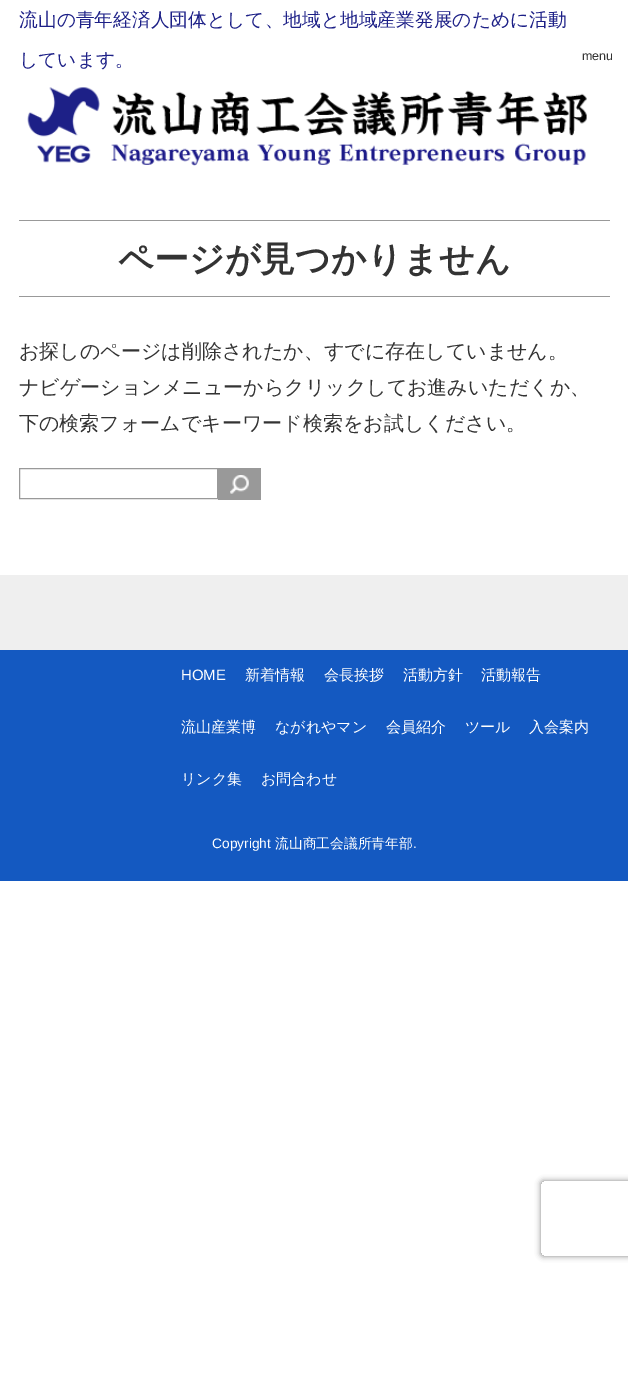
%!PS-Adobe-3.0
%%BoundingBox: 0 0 628 1373
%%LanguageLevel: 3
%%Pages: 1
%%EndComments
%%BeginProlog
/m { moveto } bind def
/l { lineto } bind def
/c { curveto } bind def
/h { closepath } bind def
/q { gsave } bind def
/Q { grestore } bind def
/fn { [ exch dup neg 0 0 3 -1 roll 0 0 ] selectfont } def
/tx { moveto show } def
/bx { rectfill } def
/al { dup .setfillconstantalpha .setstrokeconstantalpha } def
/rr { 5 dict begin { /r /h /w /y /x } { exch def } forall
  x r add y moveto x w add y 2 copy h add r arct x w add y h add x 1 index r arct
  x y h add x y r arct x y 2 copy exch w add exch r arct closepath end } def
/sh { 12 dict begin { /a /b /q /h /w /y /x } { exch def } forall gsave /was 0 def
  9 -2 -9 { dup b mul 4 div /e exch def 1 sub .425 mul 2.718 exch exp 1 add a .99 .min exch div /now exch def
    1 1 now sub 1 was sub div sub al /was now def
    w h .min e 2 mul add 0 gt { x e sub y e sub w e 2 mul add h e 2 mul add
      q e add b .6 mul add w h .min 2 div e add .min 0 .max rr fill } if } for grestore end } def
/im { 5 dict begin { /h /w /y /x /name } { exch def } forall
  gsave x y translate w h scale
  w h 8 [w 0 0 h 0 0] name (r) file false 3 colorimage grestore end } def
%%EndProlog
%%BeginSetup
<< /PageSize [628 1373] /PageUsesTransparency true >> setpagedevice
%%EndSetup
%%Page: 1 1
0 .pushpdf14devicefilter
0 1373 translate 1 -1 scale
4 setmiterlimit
1 setgray
0 0 628 1373 bx
/WenQuanYiZenHei-Medium 18.75 fn
0.114 0.125 0.529 setrgbcolor
(流山の青年経済人団体として、地域と地域産業発展のために活動) 19 26 tx
(しています。) 19 66 tx
(image0.raw) 27 87 560 79 im
/LiberationSans-Regular 12.5 fn
0.2 setgray
(menu) 582 60 tx
0.6 setgray
19 220 591 1 bx
19 296 591 1 bx
/WenQuanYiZenHei-Bold 35 fn
0.2 setgray
(ページが見つかりません) 118 271 tx
/WenQuanYiZenHei-Medium 20 fn
(お探しのページは削除されたか、すでに存在していません。) 19 358 tx
(ナビゲーションメニューからクリックしてお進みいただくか、) 19 394 tx
(下の検索フォームでキーワード検索をお試しください。) 19 430 tx
0.6 setgray
19.5 468.5 198 30 rectstroke
218 468 43 32 bx
(image1.raw) 230 475 19 19 im
0.937 setgray
0 575 628 75 bx
0.078 0.349 0.757 setrgbcolor
0 650 628 231 bx
/LiberationSans-Regular 15 fn
1 setgray
(HOME) 181 680 tx
/WenQuanYiZenHei-Medium 15 fn
(新着情報) 245 680 tx
(会長挨拶) 324 680 tx
(活動方針) 403 680 tx
(活動報告) 481 680 tx
(流山産業博) 181 732 tx
(ながれやマン) 275 732 tx
(会員紹介) 386 732 tx
(ツール) 465 732 tx
(入会案内) 529 732 tx
(リンク集) 181 784 tx
(お問合わせ) 261 784 tx
/LiberationSans-Regular 13.75 fn
(Copyright) 212 848 tx
/WenQuanYiZenHei-Medium 13.75 fn
(流山商工会議所青年部) 275 848 tx
/LiberationSans-Regular 13.75 fn
(.) 413 848 tx
q
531 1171 m 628 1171 l 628 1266 l 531 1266 l h 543.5 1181 m 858.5 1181 l 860 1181 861 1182 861 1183.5 c 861 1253.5 l 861 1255 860 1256 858.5 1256 c 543.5 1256 l 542 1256 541 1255 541 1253.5 c 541 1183.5 l 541 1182 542 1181 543.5 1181 c h eoclip newpath
0.502 setgray
541 1181 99 75 2.5 3 1 sh
Q
.poppdf14devicefilter showpage
%%EOF
